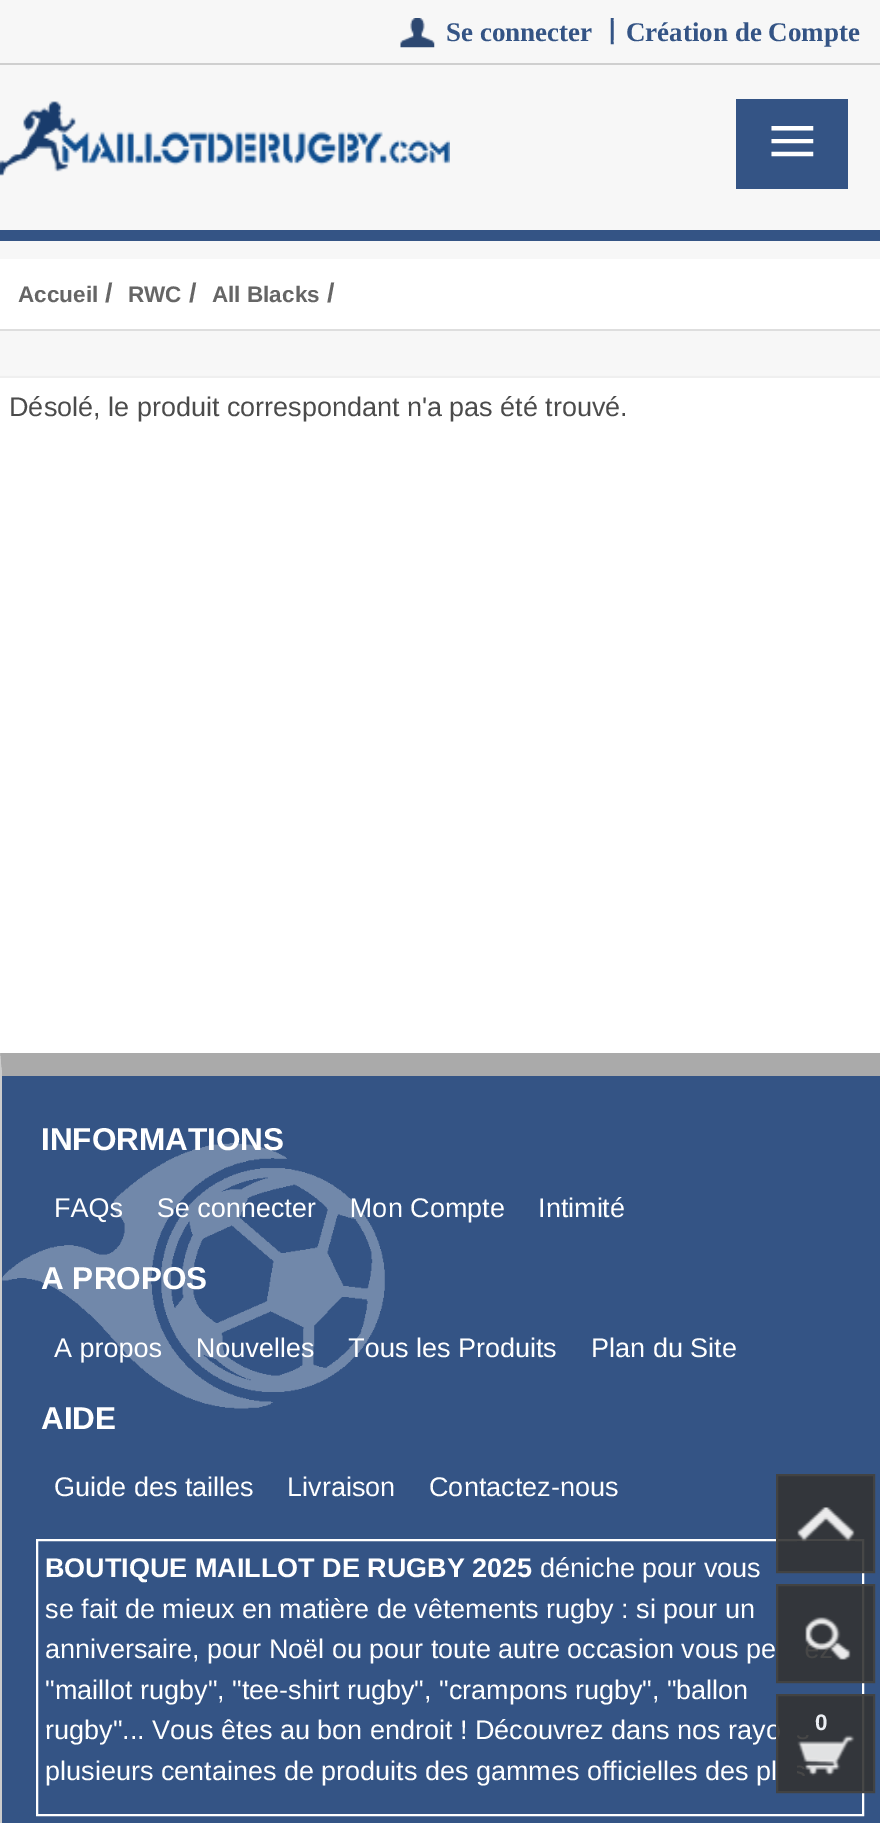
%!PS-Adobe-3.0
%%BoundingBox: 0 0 880 1823
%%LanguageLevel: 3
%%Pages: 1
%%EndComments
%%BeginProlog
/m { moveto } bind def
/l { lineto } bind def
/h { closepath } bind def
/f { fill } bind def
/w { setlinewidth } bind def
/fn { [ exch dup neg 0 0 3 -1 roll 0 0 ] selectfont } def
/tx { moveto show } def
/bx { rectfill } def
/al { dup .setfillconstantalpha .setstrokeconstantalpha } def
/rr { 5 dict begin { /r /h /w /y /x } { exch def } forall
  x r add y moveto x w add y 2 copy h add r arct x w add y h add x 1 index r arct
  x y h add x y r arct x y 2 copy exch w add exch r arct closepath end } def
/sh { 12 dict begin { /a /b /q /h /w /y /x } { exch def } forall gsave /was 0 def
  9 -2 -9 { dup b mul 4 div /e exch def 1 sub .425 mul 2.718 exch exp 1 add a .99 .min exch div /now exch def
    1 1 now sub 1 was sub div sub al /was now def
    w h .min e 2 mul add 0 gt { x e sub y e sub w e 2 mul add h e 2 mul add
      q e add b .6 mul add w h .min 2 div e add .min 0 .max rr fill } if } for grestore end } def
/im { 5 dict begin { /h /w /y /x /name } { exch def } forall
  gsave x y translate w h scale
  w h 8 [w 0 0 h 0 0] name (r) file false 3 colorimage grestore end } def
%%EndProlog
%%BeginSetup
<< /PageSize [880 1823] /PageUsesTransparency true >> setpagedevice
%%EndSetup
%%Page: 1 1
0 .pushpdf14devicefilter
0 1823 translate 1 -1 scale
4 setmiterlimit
0.969 setgray
0 0 880 1823 bx
0.204 0.329 0.522 setrgbcolor
0 230 880 11 bx
0.812 setgray
0 63 880 2 bx
(image0.raw) 400 18 35 30 im
/LiberationSerif-Bold 27 fn
0.204 0.329 0.522 setrgbcolor
(Se connecter) 446 41 tx
/WenQuanYiZenHei-Bold 27 fn
(丨) 599 41 tx
/LiberationSerif-Bold 27 fn
(Création de Compte) 626 41 tx
(image1.raw) 0 101 450 75 im
736 99 112 90 bx
/LiberationSerif-Regular 90 fn
1 setgray
(≡) 767 171 tx
0 259 880 70 bx
0.871 setgray
0 329 880 2 bx
/LiberationSans-Bold 22.5 fn
0.4 setgray
(Accueil) 18 302 tx
/LiberationSans-Bold 27 fn
(/) 105 302 tx
/LiberationSans-Bold 22.5 fn
(RWC) 128 302 tx
/LiberationSans-Bold 27 fn
(/) 189 302 tx
/LiberationSans-Bold 22.5 fn
(All Blacks) 212 302 tx
/LiberationSans-Bold 27 fn
(/) 327 302 tx
0.867 setgray
0 387 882 677 0 5.5 0.87 sh
1 setgray
0 378 880 675 bx
0.937 setgray
0 376 880 2 bx
/LiberationSans-Regular 27 fn
0.294 setgray
(Désolé, le produit correspondant n'a pas été trouvé.) 9 416 tx
0.204 0.329 0.522 setrgbcolor
2 1076 878 747 bx
0.667 setgray
0 1053 m 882 1053 l 880 1076 l 2 1076 l h f
0.8 setgray
0 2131 m 0 1053 l 2 1076 l 2 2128 l h f
1 setgray
(FAQs) 54 1217 tx
(Se connecter) 157 1217 tx
(Mon Compte) 350 1217 tx
(A propos) 54 1357 tx
(Nouvelles) 196 1357 tx
(Tous les Produits) 348 1357 tx
(image2.raw) 2 1143 383 266 im
/LiberationSans-Bold 31.5 fn
(INFORMATIONS) 41 1150 tx
/LiberationSans-Regular 27 fn
(Intimité) 538 1217 tx
/LiberationSans-Bold 31.5 fn
(A PROPOS) 41 1289 tx
/LiberationSans-Regular 27 fn
(Plan du Site) 591 1357 tx
/LiberationSans-Bold 31.5 fn
(AIDE) 41 1429 tx
/LiberationSans-Regular 27 fn
(Guide des tailles) 54 1496 tx
(Livraison) 287 1496 tx
(Contactez-nous) 429 1496 tx
2 w
37 1540 826 275 rectstroke
/LiberationSans-Bold 27 fn
(BOUTIQUE MAILLOT DE RUGBY 2025) 45 1577 tx
/LiberationSans-Regular 27 fn
(déniche pour vous) 540 1577 tx
(se fait de mieux en matière de vêtements rugby : si pour un) 45 1618 tx
(anniversaire, pour Noël ou pour toute autre occasion vous pe) 45 1658 tx
("maillot rugby", "tee-shirt rugby", "crampons rugby", "ballon) 45 1699 tx
(rugby"... Vous êtes au bon endroit ! Découvrez dans nos rayo) 45 1739 tx
(plusieurs centaines de produits des gammes officielles des pl) 45 1780 tx
0.9 al
0.2 setgray
776 1474 99 99 bx
0.267 setgray
777 1475 97 97 rectstroke
1 al
(image3.raw) 797 1507 58 35 im
0.9 al
0.2 setgray
776 1584 99 99 bx
0.267 setgray
777 1585 97 97 rectstroke
1 al
(image4.raw) 805 1617 46 43 im
0.9 al
0.2 setgray
776 1694 99 99 bx
0.267 setgray
777 1695 97 97 rectstroke
/LiberationSans-Bold 22.5 fn
1 al
0.922 0.933 0.953 setrgbcolor
(0) 815 1730 tx
(image5.raw) 797 1735 58 41 im
.poppdf14devicefilter showpage
%%EOF
